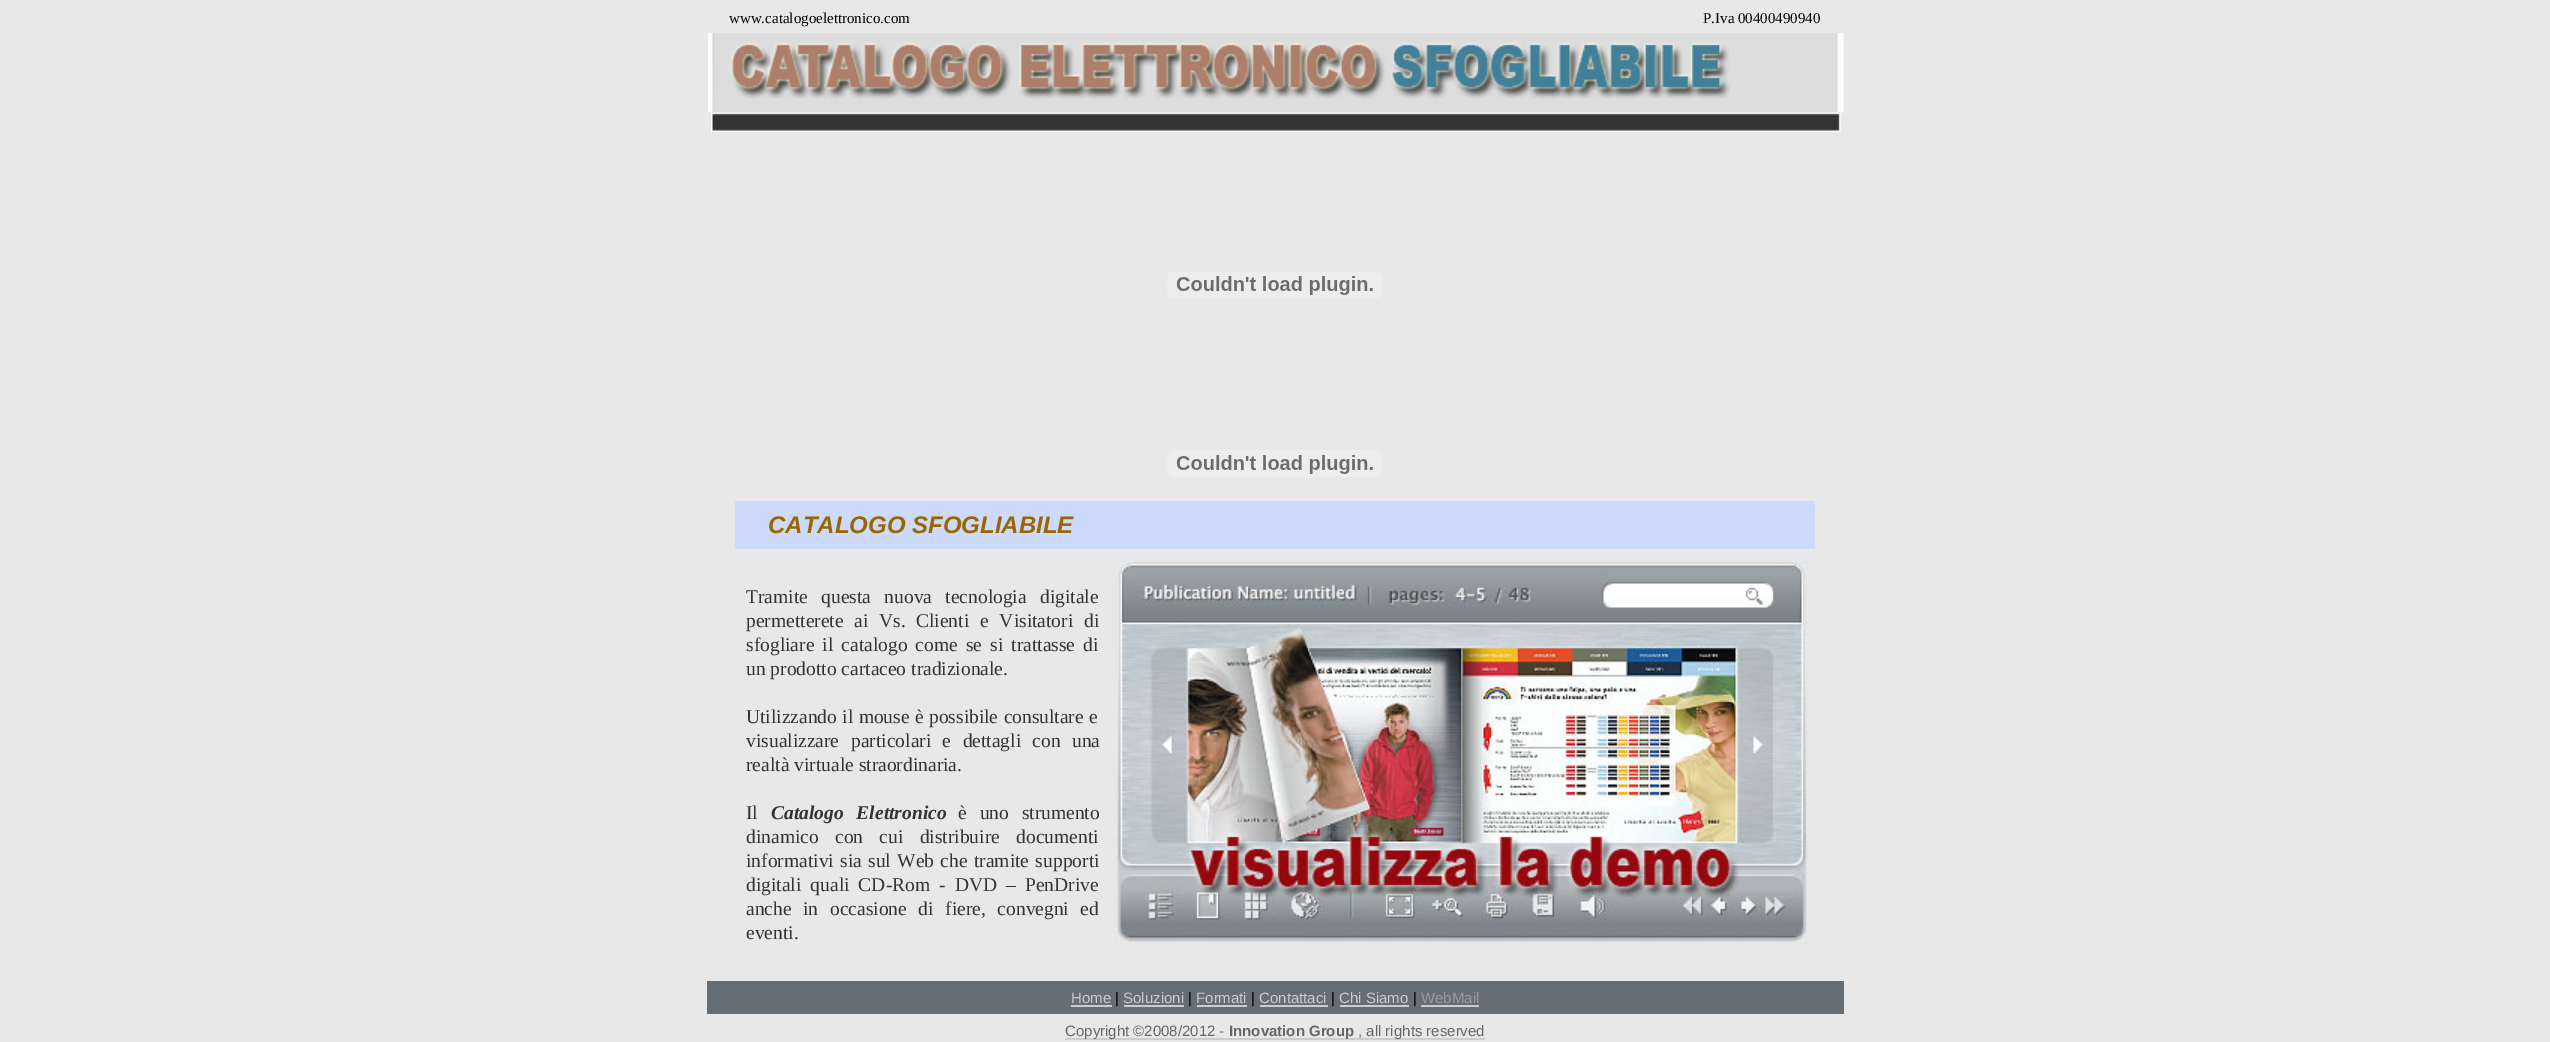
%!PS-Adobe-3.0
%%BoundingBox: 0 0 2550 1042
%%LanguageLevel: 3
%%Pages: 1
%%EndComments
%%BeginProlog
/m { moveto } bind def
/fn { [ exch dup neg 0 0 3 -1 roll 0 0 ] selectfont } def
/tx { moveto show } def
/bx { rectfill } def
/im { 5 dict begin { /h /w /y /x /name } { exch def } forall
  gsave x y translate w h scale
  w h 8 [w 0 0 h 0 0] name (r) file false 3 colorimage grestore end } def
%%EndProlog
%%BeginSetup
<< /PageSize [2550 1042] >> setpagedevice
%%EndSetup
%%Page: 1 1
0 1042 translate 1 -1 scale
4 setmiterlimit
0.91 setgray
0 0 2550 1042 bx
/LiberationSerif-Regular 15 fn
0 setgray
(www.catalogoelettronico.com) 729 23 tx
(P.Iva 00400490940) 1703 23 tx
(image0.raw) 708 33 1136 80 im
(image1.raw) 711 112 1130 20 im
(image2.raw) 1167 272 216 26 im
(image3.raw) 1167 450 216 27 im
0.804 0.855 0.988 setrgbcolor
735 501 1080 48 bx
/LiberationSans-BoldItalic 24 fn
0.6 0.4 0 setrgbcolor
(CATALOGO SFOGLIABILE) 768 533 tx
/LiberationSerif-Regular 19.5 fn
0.2 setgray
746 603 m 8.5 0 32 (Tramite questa nuova tecnologia digitale) widthshow
746 627 m 6 0 32 (permetterete ai Vs.) widthshow
916 627 m 6 0 32 (Clienti e Visitatori di) widthshow
746 651 m 3.25 0 32 (sfogliare il catalogo come se si trattasse di) widthshow
(un prodotto cartaceo tradizionale.) 746 675 tx
746 723 m 0.5 0 32 (Utilizzando il mouse è possibile consultare e) widthshow
(visualizzare) 746 747 tx
851 747 m 6.5 0 32 (particolari e dettagli con una) widthshow
(realtà virtuale straordinaria.) 746 771 tx
(Il) 746 819 tx
/LiberationSerif-BoldItalic 19.5 fn
771 819 m 8 0 32 (Catalogo Elettronico) widthshow
/LiberationSerif-Regular 19.5 fn
958 819 m 8 0 32 (è uno strumento) widthshow
746 843 m 11.5 0 32 (dinamico con cui distribuire documenti) widthshow
746 867 m 1.5 0 32 (informativi sia sul Web che tramite supporti) widthshow
746 891 m 4.25 0 32 (digitali quali CD-Rom - DVD – PenDrive) widthshow
746 915 m 6.75 0 32 (anche in occasione di fiere, convegni ed) widthshow
(eventi.) 746 939 tx
(image4.raw) 1110 561 697 384 im
0.396 0.431 0.459 setrgbcolor
707 981 1137 33 bx
/LiberationSans-Regular 15 fn
0.8 setgray
(Home) 1071 1003 tx
1071 1005 41 2 bx
0 setgray
(|) 1115 1003 tx
0.8 setgray
(Soluzioni) 1123 1003 tx
1124 1005 60 2 bx
0 setgray
(|) 1188 1003 tx
0.8 setgray
(Formati) 1196 1003 tx
1197 1005 50 2 bx
0 setgray
(|) 1251 1003 tx
0.8 setgray
(Contattaci) 1259 1003 tx
1260 1005 68 2 bx
0 setgray
(|) 1331 1003 tx
0.8 setgray
(Chi Siamo) 1339 1003 tx
1340 1005 69 2 bx
0 setgray
(|) 1413 1003 tx
0.6 setgray
(WebMail) 1421 1003 tx
0.8 setgray
1421 1005 58 2 bx
1065 1038 420 2 bx
0.4 setgray
(Copyright ©2008/2012 -) 1065 1036 tx
/LiberationSans-Bold 15 fn
(Innovation Group) 1229 1036 tx
/LiberationSans-Regular 15 fn
(, all rights reserved) 1358 1036 tx
showpage
%%EOF
